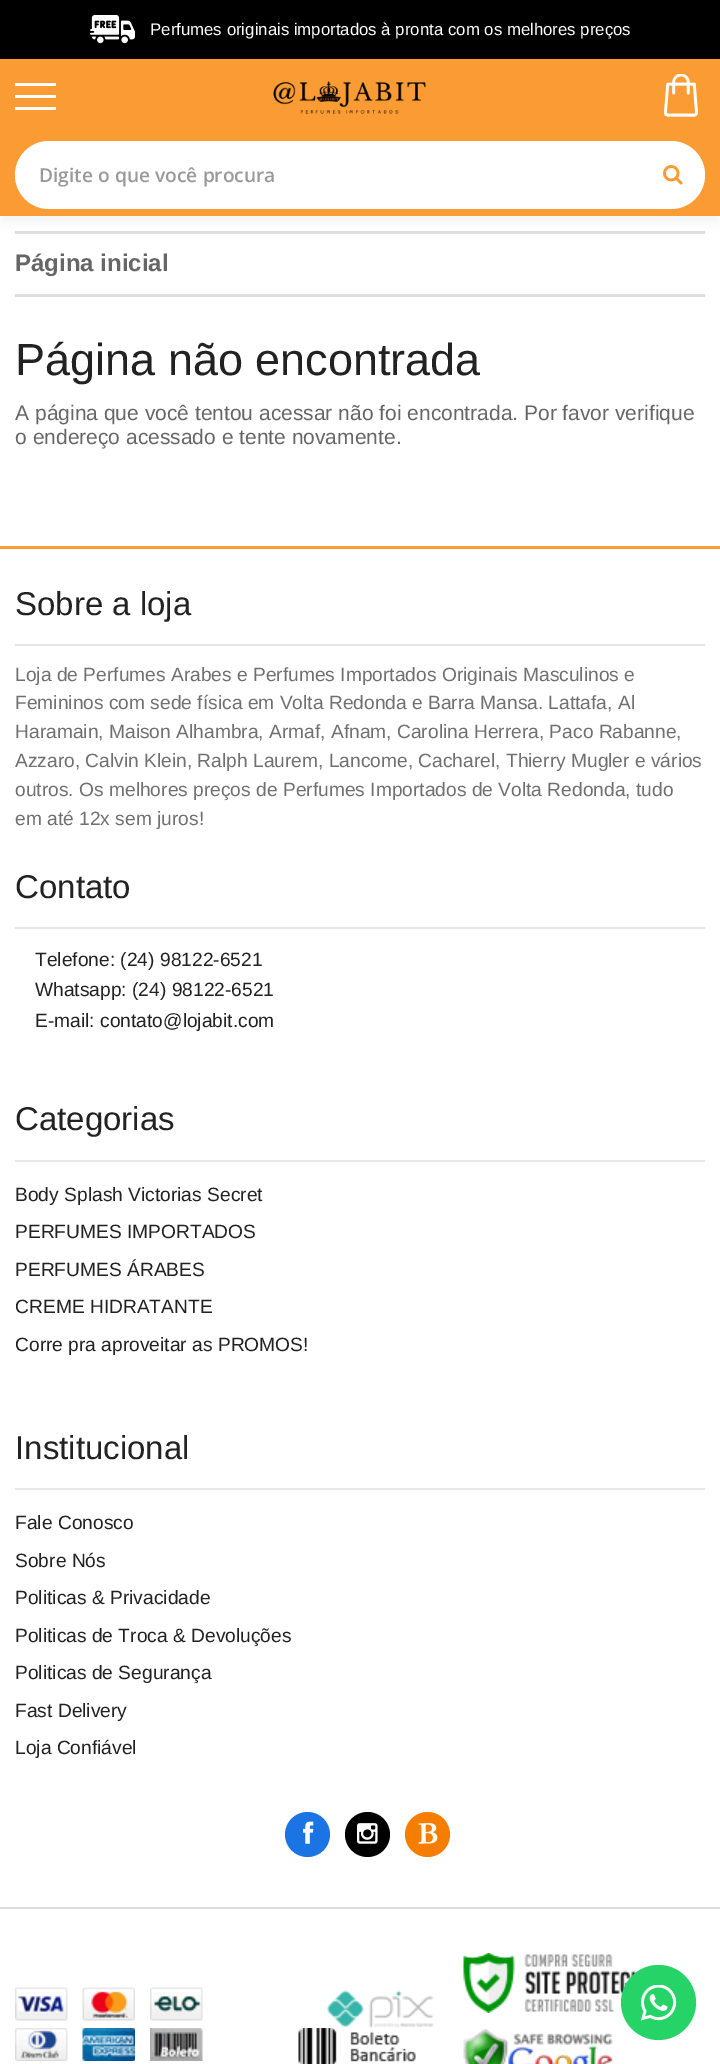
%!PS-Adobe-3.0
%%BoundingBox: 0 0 720 2064
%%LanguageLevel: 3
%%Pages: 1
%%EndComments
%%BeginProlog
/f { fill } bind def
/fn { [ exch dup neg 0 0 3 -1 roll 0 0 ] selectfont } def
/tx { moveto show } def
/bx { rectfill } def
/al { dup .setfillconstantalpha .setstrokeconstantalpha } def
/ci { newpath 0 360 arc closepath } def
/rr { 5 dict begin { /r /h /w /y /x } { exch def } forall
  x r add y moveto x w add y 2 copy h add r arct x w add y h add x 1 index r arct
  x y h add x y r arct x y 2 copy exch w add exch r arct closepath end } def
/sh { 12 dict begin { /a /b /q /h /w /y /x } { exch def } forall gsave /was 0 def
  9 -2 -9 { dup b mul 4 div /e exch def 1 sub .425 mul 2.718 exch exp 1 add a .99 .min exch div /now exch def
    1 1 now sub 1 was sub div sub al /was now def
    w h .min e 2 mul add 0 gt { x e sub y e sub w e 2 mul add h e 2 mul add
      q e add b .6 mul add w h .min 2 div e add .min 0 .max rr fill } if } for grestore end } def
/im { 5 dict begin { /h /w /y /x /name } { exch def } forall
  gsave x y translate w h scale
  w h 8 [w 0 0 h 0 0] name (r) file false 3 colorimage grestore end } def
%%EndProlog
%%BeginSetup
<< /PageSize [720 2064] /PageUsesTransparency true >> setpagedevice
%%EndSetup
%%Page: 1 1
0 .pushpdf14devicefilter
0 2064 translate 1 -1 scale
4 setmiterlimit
1 setgray
0 0 720 2064 bx
0 setgray
0 0 720 59 bx
(image0.raw) 90 15 45 29 im
/LiberationSans-Regular 16.8 fn
1 setgray
(Perfumes originais importados à pronta com os melhores preços) 150 35 tx
0 setgray
0 66 720 158 0 4.5 0.04 sh
0.984 0.608 0.204 setrgbcolor
0 59 720 157 bx
1 setgray
15 83 41 3 bx
15 95 41 3 bx
15 107 41 3 bx
(image1.raw) 273 81 153 33 im
(image2.raw) 663 74 36 43 im
15 141 690 68 34 rr f
/OpenSans-SemiBold 19.2 fn
0.6 setgray
(Digite o que você procura) 39 182 tx
(image3.raw) 663 165 20 20 im
0.871 setgray
15 231 690 3 bx
15 294 690 3 bx
/LiberationSans-Bold 24 fn
0.4 setgray
(Página inicial) 15 271 tx
/LiberationSans-Regular 45 fn
0.133 setgray
(Página não encontrada) 15 375 tx
/LiberationSans-Regular 21 fn
0.4 setgray
(A página que você tentou acessar não foi encontrada. Por favor verifique) 15 420 tx
(o endereço acessado e tente novamente.) 15 444 tx
0.984 0.608 0.204 setrgbcolor
0 546 720 3 bx
0.902 setgray
15 644 690 2 bx
/LiberationSans-Regular 33 fn
0.133 setgray
(Sobre a loja) 15 615 tx
/LiberationSans-Regular 19.2 fn
0.439 setgray
(Loja de Perfumes Arabes e Perfumes Importados Originais Masculinos e) 15 681 tx
(Femininos com sede física em Volta Redonda e Barra Mansa. Lattafa, Al) 15 709 tx
(Haramain, Maison Alhambra, Armaf, Afnam, Carolina Herrera, Paco Rabanne,) 15 738 tx
(Azzaro, Calvin Klein, Ralph Laurem, Lancome, Cacharel, Thierry Mugler e vários) 15 767 tx
(outros. Os melhores preços de Perfumes Importados de Volta Redonda, tudo) 15 796 tx
(em até 12x sem juros!) 15 825 tx
0.902 setgray
15 927 690 2 bx
/LiberationSans-Regular 33 fn
0.133 setgray
(Contato) 15 898 tx
/LiberationSans-Regular 19.2 fn
(Telefone: \(24\) 98122-6521) 35 966 tx
(Whatsapp: \(24\) 98122-6521) 35 996 tx
(E-mail: contato@lojabit.com) 35 1027 tx
0.902 setgray
15 1160 690 2 bx
/LiberationSans-Regular 33 fn
0.133 setgray
(Categorias) 15 1130 tx
/LiberationSans-Regular 19.2 fn
(Body Splash Victorias Secret) 15 1201 tx
(PERFUMES IMPORTADOS) 15 1238 tx
(PERFUMES ÁRABES) 15 1276 tx
(CREME HIDRATANTE) 15 1313 tx
(Corre pra aproveitar as PROMOS!) 15 1351 tx
0.902 setgray
15 1488 690 2 bx
/LiberationSans-Regular 33 fn
0.133 setgray
(Institucional) 15 1459 tx
/LiberationSans-Regular 19.2 fn
(Fale Conosco) 15 1529 tx
(Sobre Nós) 15 1567 tx
(Politicas & Privacidade) 15 1604 tx
(Politicas de Troca & Devoluções) 15 1642 tx
(Politicas de Segurança) 15 1679 tx
(Fast Delivery) 15 1717 tx
(Loja Confiável) 15 1754 tx
0.106 0.455 0.894 setrgbcolor
307.5 1834.5 22.5 ci f
(image4.raw) 303 1821 11 23 im
0 setgray
367.5 1834.5 22.5 ci f
(image5.raw) 357 1823 21 21 im
0.961 0.49 0 setrgbcolor
427.5 1834.5 22.5 ci f
(image6.raw) 418 1823 20 21 im
0.867 setgray
0 1907 720 2 bx
(image7.raw) 15 1987 53 34 im
(image8.raw) 82 1987 53 34 im
(image9.raw) 150 1987 53 34 im
(image10.raw) 15 2028 53 33 im
(image11.raw) 82 2028 53 33 im
(image12.raw) 150 2028 53 33 im
(image13.raw) 327 1990 107 38 im
(image14.raw) 298 2028 118 36 im
(image15.raw) 463 1953 177 60 im
(image16.raw) 463 2029 150 35 im
0.145 0.827 0.4 setrgbcolor
658.5 2002.5 37.5 ci f
(image17.raw) 641 1985 36 36 im
.poppdf14devicefilter showpage
%%EOF
